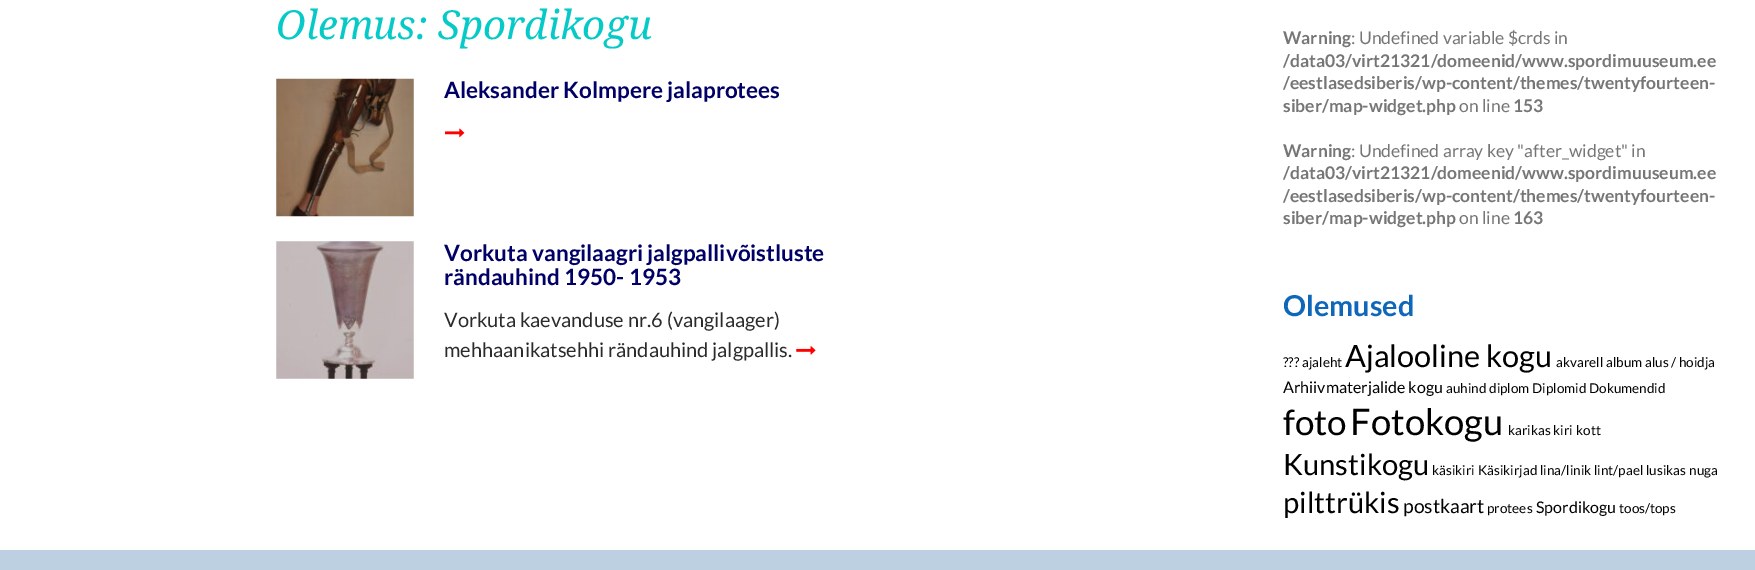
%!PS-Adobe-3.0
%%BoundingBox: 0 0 1755 570
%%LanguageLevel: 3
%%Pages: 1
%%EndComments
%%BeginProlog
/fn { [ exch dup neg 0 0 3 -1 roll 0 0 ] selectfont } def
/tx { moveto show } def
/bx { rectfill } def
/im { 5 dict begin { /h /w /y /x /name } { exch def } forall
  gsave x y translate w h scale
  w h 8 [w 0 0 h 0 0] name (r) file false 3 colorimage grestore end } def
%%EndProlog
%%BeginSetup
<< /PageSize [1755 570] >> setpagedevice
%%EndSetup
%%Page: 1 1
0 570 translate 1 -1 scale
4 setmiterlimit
1 setgray
0 0 1755 570 bx
/DroidSerif-Italic 40 fn
0.02 0.792 0.784 setrgbcolor
(Olemus: Spordikogu) 276 39 tx
(image0.raw) 276 78 138 139 im
/Lato-Bold 22.5 fn
0 0 0.4 setrgbcolor
(Aleksander Kolmpere jalaprotees) 444 98 tx
(image1.raw) 445 128 20 10 im
(image2.raw) 276 241 138 138 im
(Vorkuta vangilaagri jalgpallivõistluste) 444 261 tx
(rändauhind 1950- 1953) 444 285 tx
/Lato-Regular 20 fn
0.169 setgray
(Vorkuta kaevanduse nr.6 \(vangilaager\)) 444 327 tx
(mehhaanikatsehhi rändauhind jalgpallis.) 444 357 tx
(image3.raw) 796 346 20 9 im
/Lato-Bold 17.5 fn
0.463 setgray
(Warning) 1283 44 tx
/Lato-Regular 17.5 fn
(: Undefined variable $crds in) 1351 44 tx
/Lato-Bold 17.5 fn
(/data03/virt21321/domeenid/www.spordimuuseum.ee) 1283 67 tx
(/eestlasedsiberis/wp-content/themes/twentyfourteen-) 1283 89 tx
(siber/map-widget.php) 1283 112 tx
/Lato-Regular 17.5 fn
(on line) 1459 112 tx
/Lato-Bold 17.5 fn
(153) 1513 112 tx
(Warning) 1283 157 tx
/Lato-Regular 17.5 fn
(: Undefined array key "after_widget" in) 1351 157 tx
/Lato-Bold 17.5 fn
(/data03/virt21321/domeenid/www.spordimuuseum.ee) 1283 179 tx
(/eestlasedsiberis/wp-content/themes/twentyfourteen-) 1283 202 tx
(siber/map-widget.php) 1283 224 tx
/Lato-Regular 17.5 fn
(on line) 1459 224 tx
/Lato-Bold 17.5 fn
(163) 1513 224 tx
/Lato-Bold 28.75 fn
0.059 0.404 0.729 setrgbcolor
(Olemused) 1283 316 tx
/Lato-Regular 13.5 fn
0 setgray
(???) 1283 367 tx
(ajaleht) 1302 367 tx
/Lato-Regular 30.75 fn
(Ajalooline kogu) 1345 367 tx
/Lato-Regular 13.5 fn
(akvarell) 1556 367 tx
(album) 1606 367 tx
(alus / hoidja) 1645 367 tx
/Lato-Regular 16 fn
(Arhiivmaterjalide kogu) 1283 393 tx
/Lato-Regular 13.5 fn
(auhind) 1446 393 tx
(diplom) 1489 393 tx
(Diplomid) 1532 393 tx
(Dokumendid) 1589 393 tx
/Lato-Regular 35 fn
(foto) 1283 435 tx
/Lato-Regular 36.5 fn
(Fotokogu) 1350 435 tx
/Lato-Regular 13.5 fn
(karikas) 1508 435 tx
(kiri) 1553 435 tx
(kott) 1576 435 tx
/Lato-Regular 29.25 fn
(Kunstikogu) 1283 475 tx
/Lato-Regular 13.5 fn
(käsikiri) 1432 475 tx
(Käsikirjad) 1478 475 tx
(lina/linik) 1540 475 tx
(lint/pael) 1594 475 tx
(lusikas) 1646 475 tx
(nuga) 1689 475 tx
/Lato-Regular 29.25 fn
(pilttrükis) 1283 513 tx
/Lato-Regular 19.25 fn
(postkaart) 1403 513 tx
/Lato-Regular 13.5 fn
(protees) 1487 513 tx
/Lato-Regular 16 fn
(Spordikogu) 1536 513 tx
/Lato-Regular 13.5 fn
(toos/tops) 1619 513 tx
0.741 0.816 0.886 setrgbcolor
0 550 1755 20 bx
showpage
%%EOF
